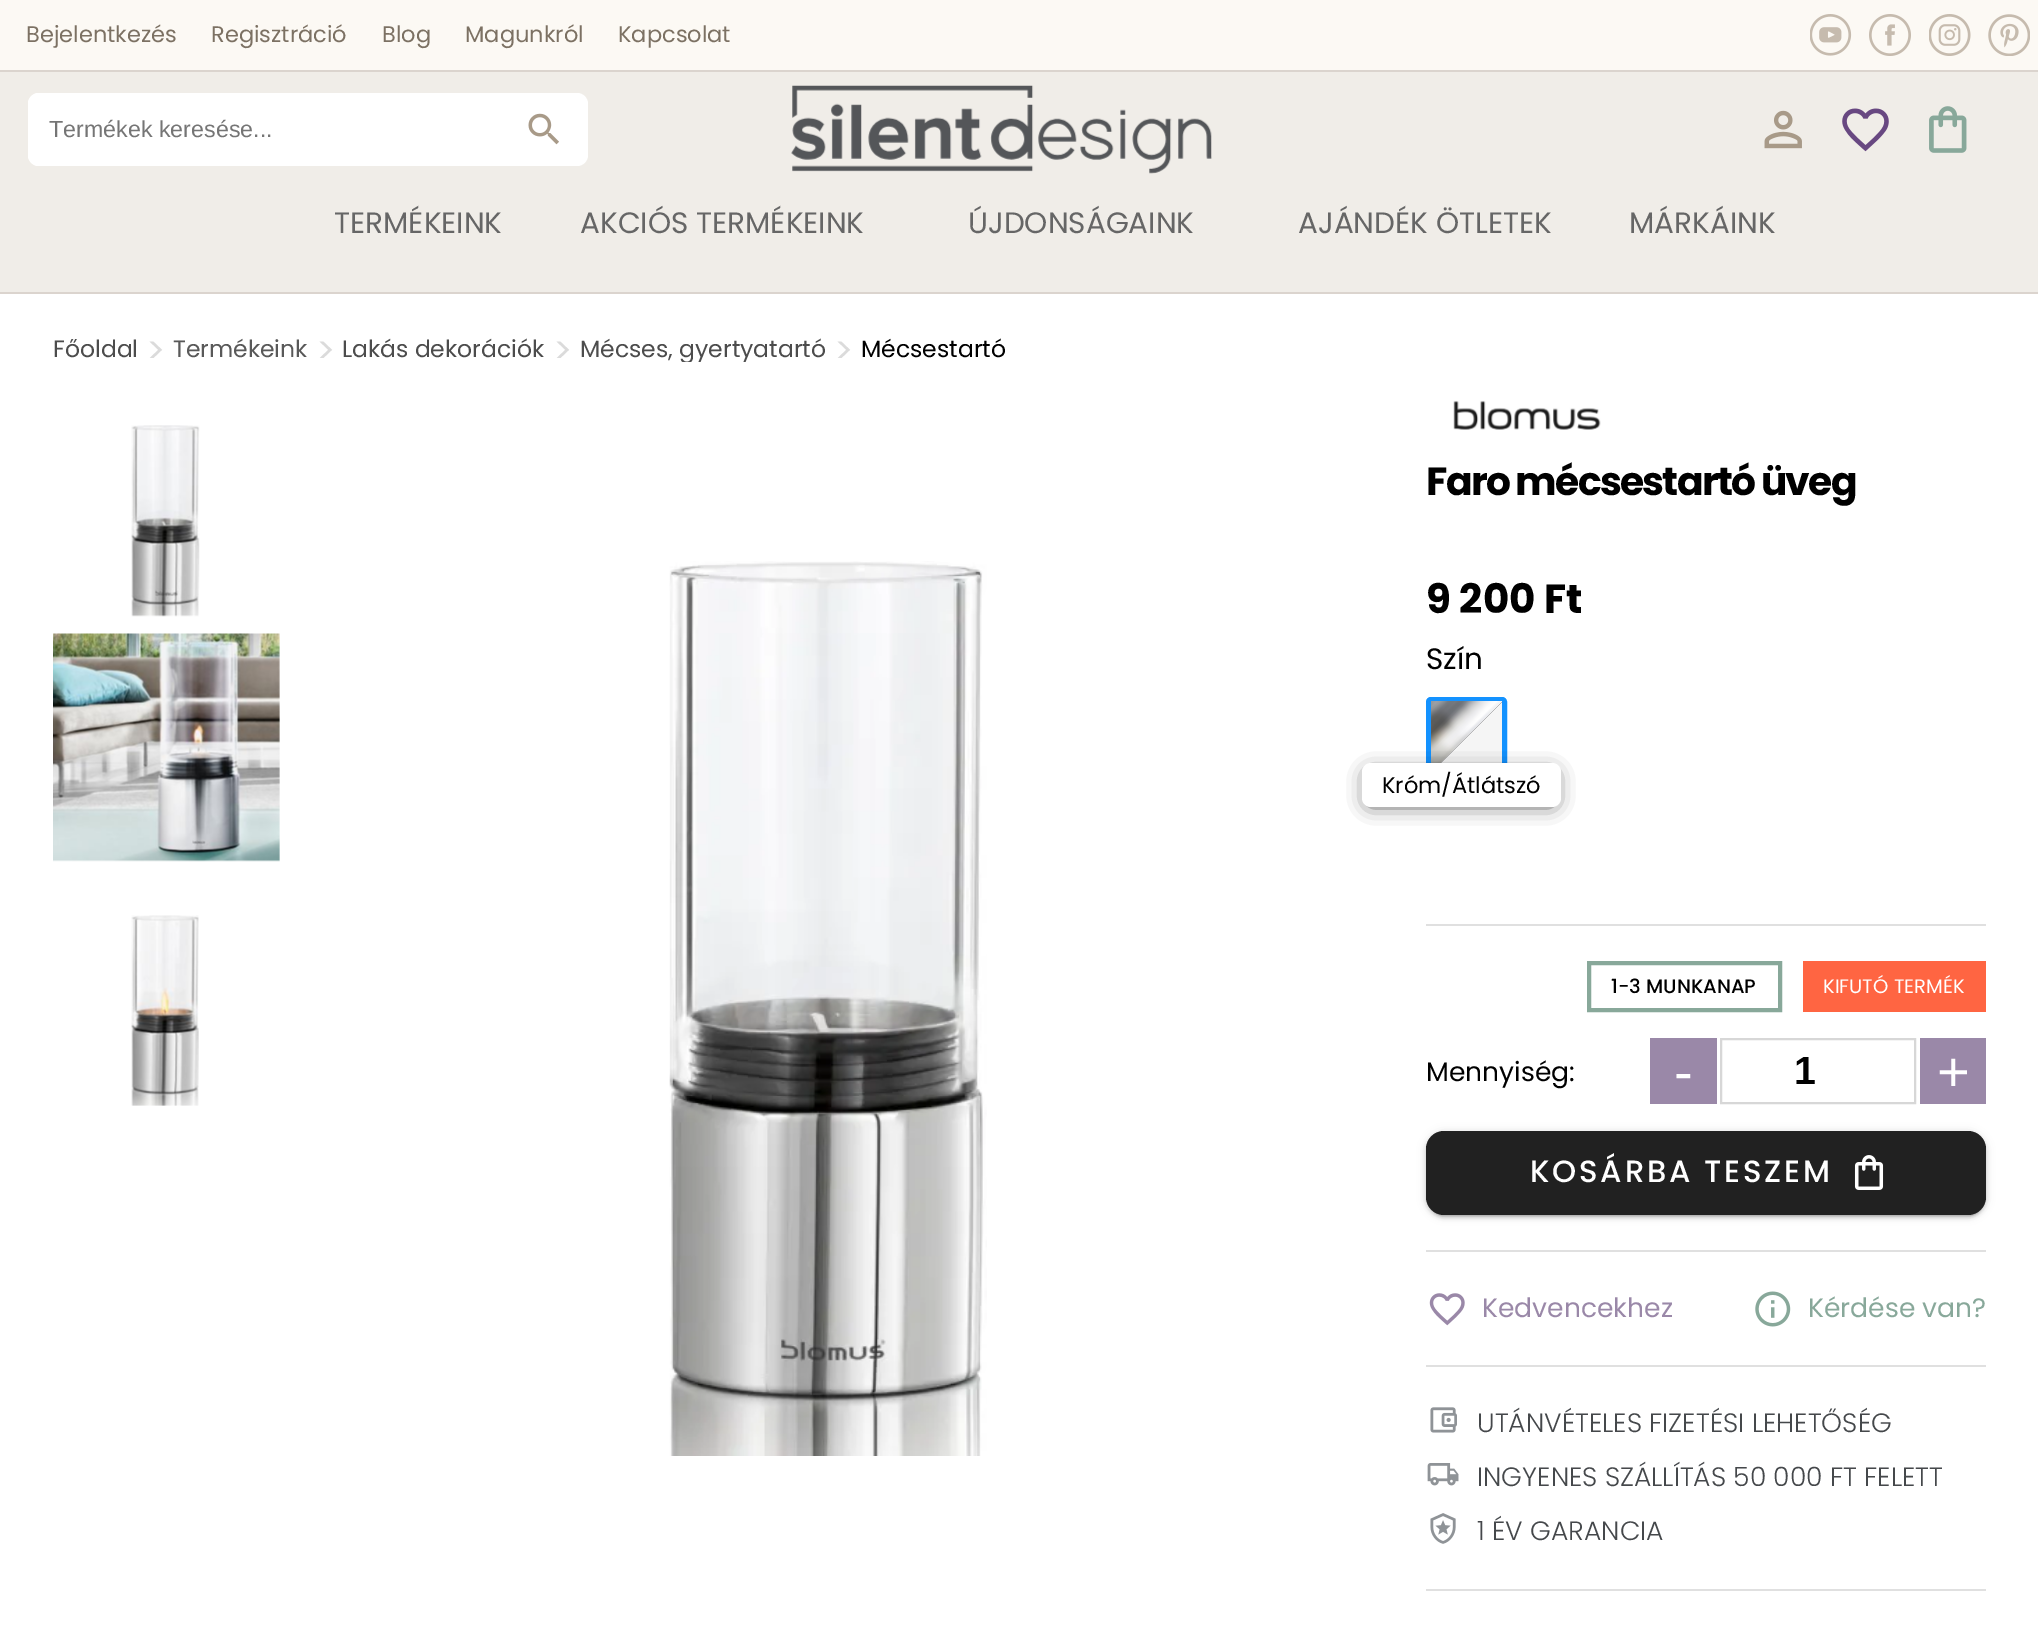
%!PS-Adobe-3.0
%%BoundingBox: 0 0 2038 1628
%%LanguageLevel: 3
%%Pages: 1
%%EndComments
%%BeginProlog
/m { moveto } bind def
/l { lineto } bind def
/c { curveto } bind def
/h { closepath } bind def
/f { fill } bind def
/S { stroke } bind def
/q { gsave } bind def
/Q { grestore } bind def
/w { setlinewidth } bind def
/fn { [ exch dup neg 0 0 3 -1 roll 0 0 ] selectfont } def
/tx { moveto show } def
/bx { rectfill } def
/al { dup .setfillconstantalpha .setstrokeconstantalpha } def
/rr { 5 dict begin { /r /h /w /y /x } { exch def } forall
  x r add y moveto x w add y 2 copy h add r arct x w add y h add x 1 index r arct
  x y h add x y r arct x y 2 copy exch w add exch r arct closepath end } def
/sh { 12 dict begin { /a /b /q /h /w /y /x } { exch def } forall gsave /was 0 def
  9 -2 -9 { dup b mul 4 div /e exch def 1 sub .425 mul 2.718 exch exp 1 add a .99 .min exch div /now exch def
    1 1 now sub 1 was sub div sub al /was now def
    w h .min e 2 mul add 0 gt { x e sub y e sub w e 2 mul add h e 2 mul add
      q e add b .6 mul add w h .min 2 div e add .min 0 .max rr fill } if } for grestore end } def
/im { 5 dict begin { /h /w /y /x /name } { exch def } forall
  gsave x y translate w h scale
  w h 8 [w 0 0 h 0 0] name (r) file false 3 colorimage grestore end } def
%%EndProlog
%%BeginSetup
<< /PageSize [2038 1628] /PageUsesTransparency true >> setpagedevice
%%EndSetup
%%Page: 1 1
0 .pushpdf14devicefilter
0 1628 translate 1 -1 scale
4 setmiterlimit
1 setgray
0 0 2038 1628 bx
0.859 0.831 0.808 setrgbcolor
0 292 2038 2 bx
0.941 0.929 0.91 setrgbcolor
0 72 2038 220 bx
0.988 0.976 0.957 setrgbcolor
0 0 2038 70 bx
0.859 0.831 0.808 setrgbcolor
0 70 2038 2 bx
/Poppins-Regular 22.5 fn
0.486 0.443 0.388 setrgbcolor
(Bejelentkezés) 26 42 tx
(Regisztráció) 211 42 tx
(Blog) 382 42 tx
(Magunkról) 465 42 tx
(Kapcsolat) 618 42 tx
(image0.raw) 1810 14 42 42 im
(image1.raw) 1869 14 42 42 im
(image2.raw) 1929 14 42 42 im
(image3.raw) 1988 14 42 42 im
1 setgray
28 93 560 73 11 rr f
39 93 m 543 93 l 543 166 l 39 166 l 33 166 28 161 28 155 c 28 104 l 28 98 33 93 39 93 c h f
/LiberationSans-Regular 23.25 fn
0.459 setgray
(Termékek keresése...) 49 137 tx
(image4.raw) 528 113 31 32 im
(image5.raw) 791 85 421 89 im
(image6.raw) 1764 110 38 39 im
(image7.raw) 1842 108 47 44 im
(image8.raw) 1929 106 38 47 im
/Poppins-Regular 29.5 fn
0.4 setgray
(TERMÉKEINK) 334 233 tx
(AKCIÓS TERMÉKEINK) 580 233 tx
(ÚJDONSÁGAINK) 968 233 tx
(AJÁNDÉK ÖTLETEK) 1298 233 tx
(MÁRKÁINK) 1629 233 tx
/Poppins-Regular 23.5 fn
0.298 setgray
(Főoldal) 53 357 tx
/Poppins-Regular 36 fn
0.859 setgray
(>) 146 363 tx
/Poppins-Regular 23.5 fn
0.349 setgray
(Termékeink) 173 357 tx
/Poppins-Regular 36 fn
0.859 setgray
(>) 316 363 tx
/Poppins-Regular 23.5 fn
0.298 setgray
(Lakás dekorációk) 342 357 tx
/Poppins-Regular 36 fn
0.859 setgray
(>) 553 363 tx
q
53 338 1933 24 rectclip
/Poppins-Regular 23.5 fn
0.298 setgray
(Mécses, gyertyatartó) 580 357 tx
Q
(>) 834 363 tx
/Poppins-Regular 23.5 fn
0 setgray
(Mécsestartó) 861 357 tx
(image9.raw) 131 425 69 192 im
(image10.raw) 53 633 227 229 im
(image11.raw) 131 915 68 191 im
(image12.raw) 669 561 318 895 im
(image13.raw) 1453 400 148 30 im
/Poppins-Bold 39.25 fn
1426 495 m -1.75 0 (Faro mécsestartó üveg) ashow
/Poppins-Bold 40.5 fn
(9 200 Ft) 1426 613 tx
/Poppins-Regular 29.5 fn
(Szín) 1426 669 tx
0.075 0.573 1 setrgbcolor
5 w
1428.5 699.5 76 75 2.5 rr S
q
1432 702 70 70 rectclip
0 setgray
1466 663 m 1541 738 l 1466 812 l 1392 738 l h f
Q
(image14.raw) 1431 701 71 62 im
q
1432 702 70 70 rectclip
0.961 setgray
1504 700 m 1541 738 l 1466 812 l 1429 775 l h f
Q
0 setgray
1370 775 182 27 0 10.5 1 sh
1 setgray
1362 763 199 44 9 rr f
/Poppins-Regular 22.5 fn
0 setgray
(Króm/Átlátszó) 1382 793 tx
0.878 setgray
1426 924 560 2 bx
0.533 0.659 0.604 setrgbcolor
4 w
1589 963 191 47 rectstroke
/Poppins-Medium 19.5 fn
0 setgray
(1-3 MUNKANAP) 1611 993 tx
1 0.396 0.259 setrgbcolor
1803 961 183 51 bx
/Poppins-Regular 19.5 fn
1 setgray
(KIFUTÓ TERMÉK) 1823 993 tx
/Poppins-Regular 26.6 fn
0 setgray
(Mennyiség:) 1426 1081 tx
0.604 0.533 0.659 setrgbcolor
1650 1038 67 66 bx
/LiberationSans-Regular 56 fn
1 setgray
(-) 1674 1091 tx
0.843 setgray
2 w
1721 1039 194 64 rectstroke
/LiberationSans-Bold 39.25 fn
0 setgray
(1) 1794 1084 tx
0.604 0.533 0.659 setrgbcolor
1920 1038 66 66 bx
/LiberationSans-Regular 56 fn
1 setgray
(+) 1937 1091 tx
0 setgray
1426 1132 560 84 18 4.5 0.12 sh
1426 1134 560 84 18 2 0.14 sh
1430 1139 553 77 14 1 0.2 sh
0.129 setgray
1426 1131 560 84 18 rr f
/Poppins-Medium 30.75 fn
1 setgray
1530 1182 m 2.75 0 (KOSÁRBA TESZEM) ashow
(image15.raw) 1854 1155 30 35 im
0.878 setgray
1426 1250 560 2 bx
(image16.raw) 1429 1293 36 33 im
/Poppins-Regular 26.6 fn
0.604 0.533 0.659 setrgbcolor
(Kedvencekhez) 1482 1317 tx
(image17.raw) 1755 1291 36 36 im
0.533 0.659 0.604 setrgbcolor
(Kérdése van?) 1808 1317 tx
0.878 setgray
1426 1365 560 2 bx
(image18.raw) 1430 1407 27 26 im
/Poppins-Light 26.6 fn
0.271 0.282 0.294 setrgbcolor
(UTÁNVÉTELES FIZETÉSI LEHETŐSÉG) 1477 1432 tx
(image19.raw) 1427 1463 32 23 im
(INGYENES SZÁLLÍTÁS 50 000 FT FELETT) 1477 1486 tx
(image20.raw) 1430 1513 26 31 im
(1 ÉV GARANCIA) 1477 1540 tx
0.878 setgray
1426 1589 560 2 bx
.poppdf14devicefilter showpage
%%EOF
